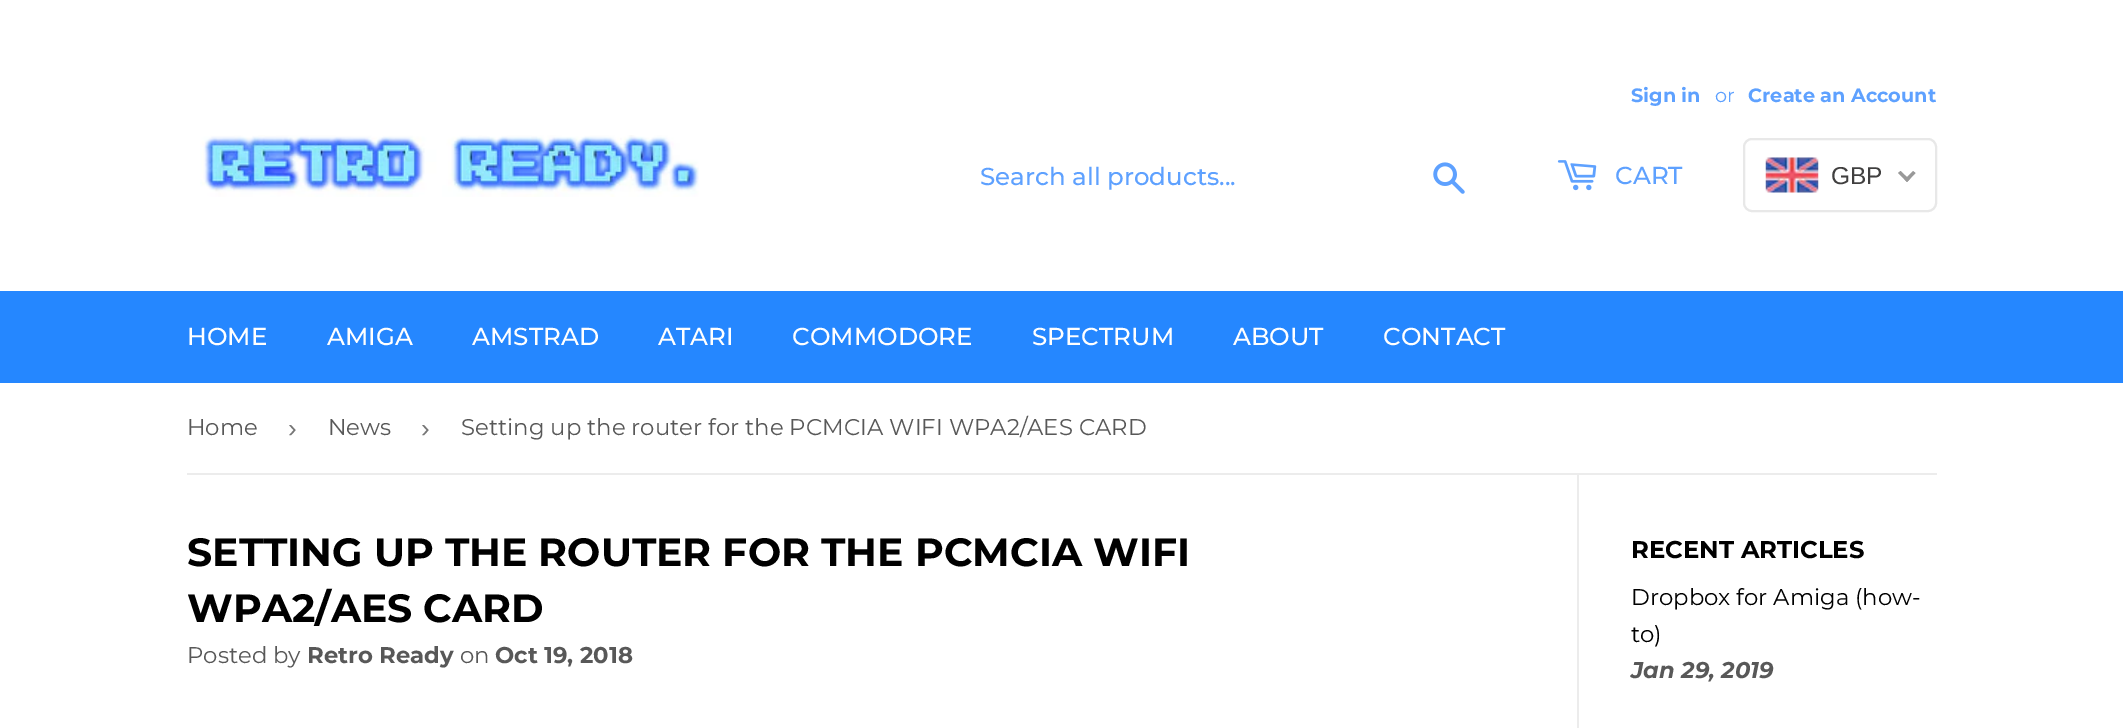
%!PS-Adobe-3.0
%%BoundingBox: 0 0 2123 728
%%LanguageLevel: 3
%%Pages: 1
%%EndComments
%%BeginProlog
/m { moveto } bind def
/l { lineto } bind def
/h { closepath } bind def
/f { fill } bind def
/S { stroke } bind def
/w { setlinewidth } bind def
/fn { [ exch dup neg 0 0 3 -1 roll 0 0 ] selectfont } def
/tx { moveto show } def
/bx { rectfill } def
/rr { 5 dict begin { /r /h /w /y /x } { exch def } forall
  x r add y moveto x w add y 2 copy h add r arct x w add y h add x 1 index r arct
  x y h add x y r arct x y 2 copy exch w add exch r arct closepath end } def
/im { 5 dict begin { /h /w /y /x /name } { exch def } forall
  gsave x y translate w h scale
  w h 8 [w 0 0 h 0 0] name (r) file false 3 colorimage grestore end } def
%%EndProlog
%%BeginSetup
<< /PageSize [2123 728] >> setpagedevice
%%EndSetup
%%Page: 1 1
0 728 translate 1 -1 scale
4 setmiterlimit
1 setgray
0 0 2123 728 bx
(image0.raw) 200 135 499 62 im
/Montserrat-Bold 19.25 fn
0.369 0.631 1 setrgbcolor
(Sign in) 1631 102 tx
/Montserrat-Regular 19.25 fn
(or) 1715 102 tx
/Montserrat-Bold 19.25 fn
(Create an Account) 1748 102 tx
/Montserrat-Medium 24.5 fn
(Search all products...) 980 185 tx
(image1.raw) 1433 162 32 32 im
(image2.raw) 1557 160 40 31 im
(CART) 1615 184 tx
0.91 setgray
2 w
1744 139 192 72 8 rr S
(image3.raw) 1765 157 54 36 im
/LiberationSans-Regular 24.5 fn
0.251 0.247 0.247 setrgbcolor
(GBP) 1831 184 tx
0.6 setgray
1913 171 m 1915.5 173 l 1907 182 l 1904.5 179.5 l h f
1900.5 171 m 1909.5 179.5 l 1907 182 l 1898 173 l h f
0.145 0.529 1 setrgbcolor
0 291 2123 92 bx
/Montserrat-Medium 24.5 fn
1 setgray
(HOME) 187 345 tx
(AMIGA) 327 345 tx
(AMSTRAD) 472 345 tx
(ATARI) 658 345 tx
(COMMODORE) 792 345 tx
(SPECTRUM) 1032 345 tx
(ABOUT) 1233 345 tx
(CONTACT) 1383 345 tx
0.925 setgray
187 473 1750 2 bx
/Montserrat-Regular 22.75 fn
0.345 setgray
(Home) 187 435 tx
/LiberationSans-Regular 26 fn
0.463 setgray
(›) 288 437 tx
/Montserrat-Regular 22.75 fn
0.345 setgray
(News) 328 435 tx
/LiberationSans-Regular 26 fn
0.463 setgray
(›) 421 437 tx
/Montserrat-Regular 22.75 fn
0.345 setgray
(Setting up the router for the PCMCIA WIFI WPA2/AES CARD) 461 435 tx
/Montserrat-Bold 39.4 fn
0 setgray
(SETTING UP THE ROUTER FOR THE PCMCIA WIFI) 187 566 tx
(WPA2/AES CARD) 187 622 tx
/Montserrat-Regular 22.75 fn
0.345 setgray
(Posted by) 187 663 tx
/Montserrat-Bold 22.75 fn
(Retro Ready) 307 663 tx
/Montserrat-Regular 22.75 fn
(on) 460 663 tx
/Montserrat-Bold 22.75 fn
(Oct 19, 2018) 495 663 tx
0.925 setgray
1577 474 2 254 bx
/Montserrat-Bold 24.25 fn
0 setgray
(RECENT ARTICLES) 1631 558 tx
/Montserrat-Regular 22.75 fn
(Dropbox for Amiga \(how-) 1631 605 tx
(to\)) 1631 642 tx
/Montserrat-BoldItalic 22.75 fn
0.345 setgray
(Jan 29, 2019) 1631 678 tx
showpage
%%EOF
